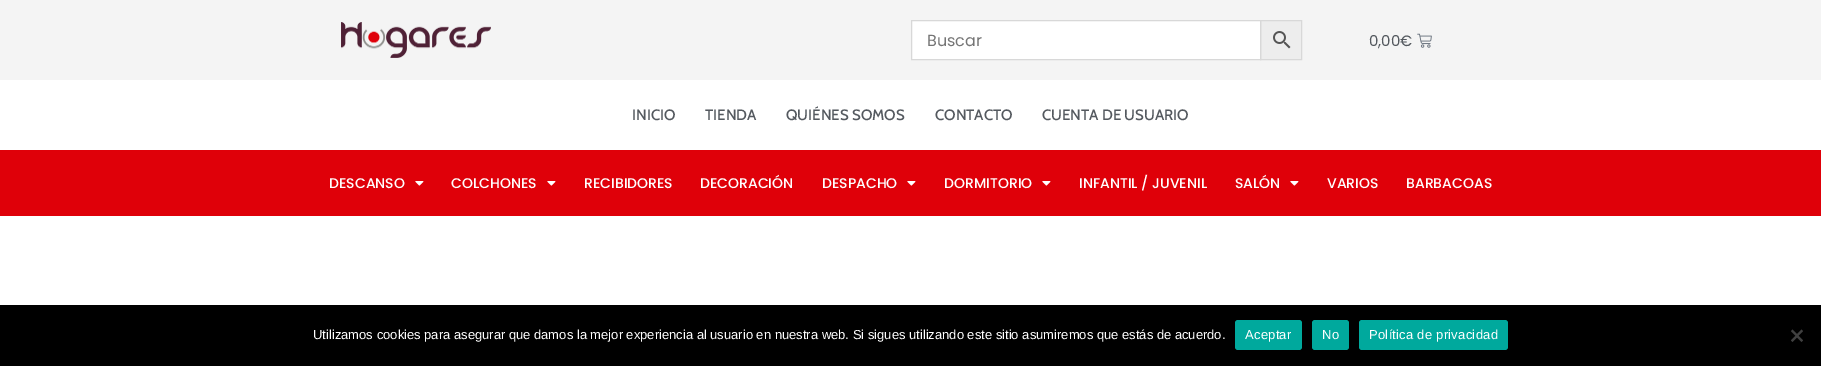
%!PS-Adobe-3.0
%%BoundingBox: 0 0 1821 366
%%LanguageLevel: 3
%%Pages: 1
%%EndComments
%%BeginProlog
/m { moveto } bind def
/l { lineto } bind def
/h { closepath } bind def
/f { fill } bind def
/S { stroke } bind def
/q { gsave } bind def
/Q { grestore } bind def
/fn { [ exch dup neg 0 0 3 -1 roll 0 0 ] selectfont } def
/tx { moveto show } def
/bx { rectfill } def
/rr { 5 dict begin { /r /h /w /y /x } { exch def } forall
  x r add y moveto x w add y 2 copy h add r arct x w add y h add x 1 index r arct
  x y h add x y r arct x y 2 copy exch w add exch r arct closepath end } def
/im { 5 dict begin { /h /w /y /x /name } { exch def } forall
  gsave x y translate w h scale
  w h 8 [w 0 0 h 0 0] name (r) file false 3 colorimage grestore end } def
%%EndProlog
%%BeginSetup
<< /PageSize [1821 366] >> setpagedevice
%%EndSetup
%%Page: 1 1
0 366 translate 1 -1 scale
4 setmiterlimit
1 setgray
0 0 1821 366 bx
0.957 setgray
0 0 1821 80 bx
(image0.raw) 341 22 150 36 im
1 setgray
912 21 348 38 bx
0.929 setgray
1260.5 20.5 m 1301.5 20.5 l 1301.5 59.5 l 1260.5 59.5 l h q f Q
0.847 setgray
S
911.5 20.5 349 39 rectstroke
/Poppins-Regular 16 fn
0.459 setgray
(Buscar) 927 46 tx
(image1.raw) 1273 31 18 18 im
/Poppins-Regular 15 fn
0.329 0.349 0.373 setrgbcolor
(0,00€) 1369 46 tx
(image2.raw) 1417 33 15 15 im
/Cabin-Medium 15 fn
(INICIO) 632 120 tx
(TIENDA) 705 120 tx
(QUIÉNES SOMOS) 786 120 tx
(CONTACTO) 935 120 tx
(CUENTA DE USUARIO) 1042 120 tx
0.875 0 0.035 setrgbcolor
0 150 1821 66 bx
/Poppins-Medium 14 fn
1 setgray
(DESCANSO) 329 188 tx
(image3.raw) 415 181 9 5 im
(COLCHONES) 451 188 tx
(image3.raw) 547 181 9 5 im
(RECIBIDORES) 584 188 tx
(DECORACIÓN) 700 188 tx
(DESPACHO) 822 188 tx
(image3.raw) 907 181 9 5 im
(DORMITORIO) 944 188 tx
(image3.raw) 1042 181 9 5 im
(INFANTIL / JUVENIL) 1079 188 tx
(SALÓN) 1235 188 tx
(image3.raw) 1290 181 9 5 im
(VARIOS) 1327 188 tx
(BARBACOAS) 1406 188 tx
0 setgray
0 305 1821 61 bx
/LiberationSans-Regular 13 fn
1 setgray
(Utilizamos cookies para asegurar que damos la mejor experiencia al usuario en nuestra web. Si sigues utilizando este sitio asumiremos que estás de acuerdo.) 313 339 tx
0 0.663 0.616 setrgbcolor
1235 320 67 30 3 rr f
1 setgray
1245 339 m 0.25 0 (Aceptar) ashow
0 0.663 0.616 setrgbcolor
1312 320 37 30 3 rr f
1 setgray
1322 339 m 0.25 0 (No) ashow
0 0.663 0.616 setrgbcolor
1359 320 149 30 3 rr f
1 setgray
1369 339 m 0.25 0 (Política de privacidad) ashow
0.251 setgray
1801.5 329.5 m 1803 331 l 1792.5 342 l 1791 340.5 l h f
1791 331 m 1792.5 329.5 l 1803 340.5 l 1801.5 342 l h f
showpage
%%EOF
